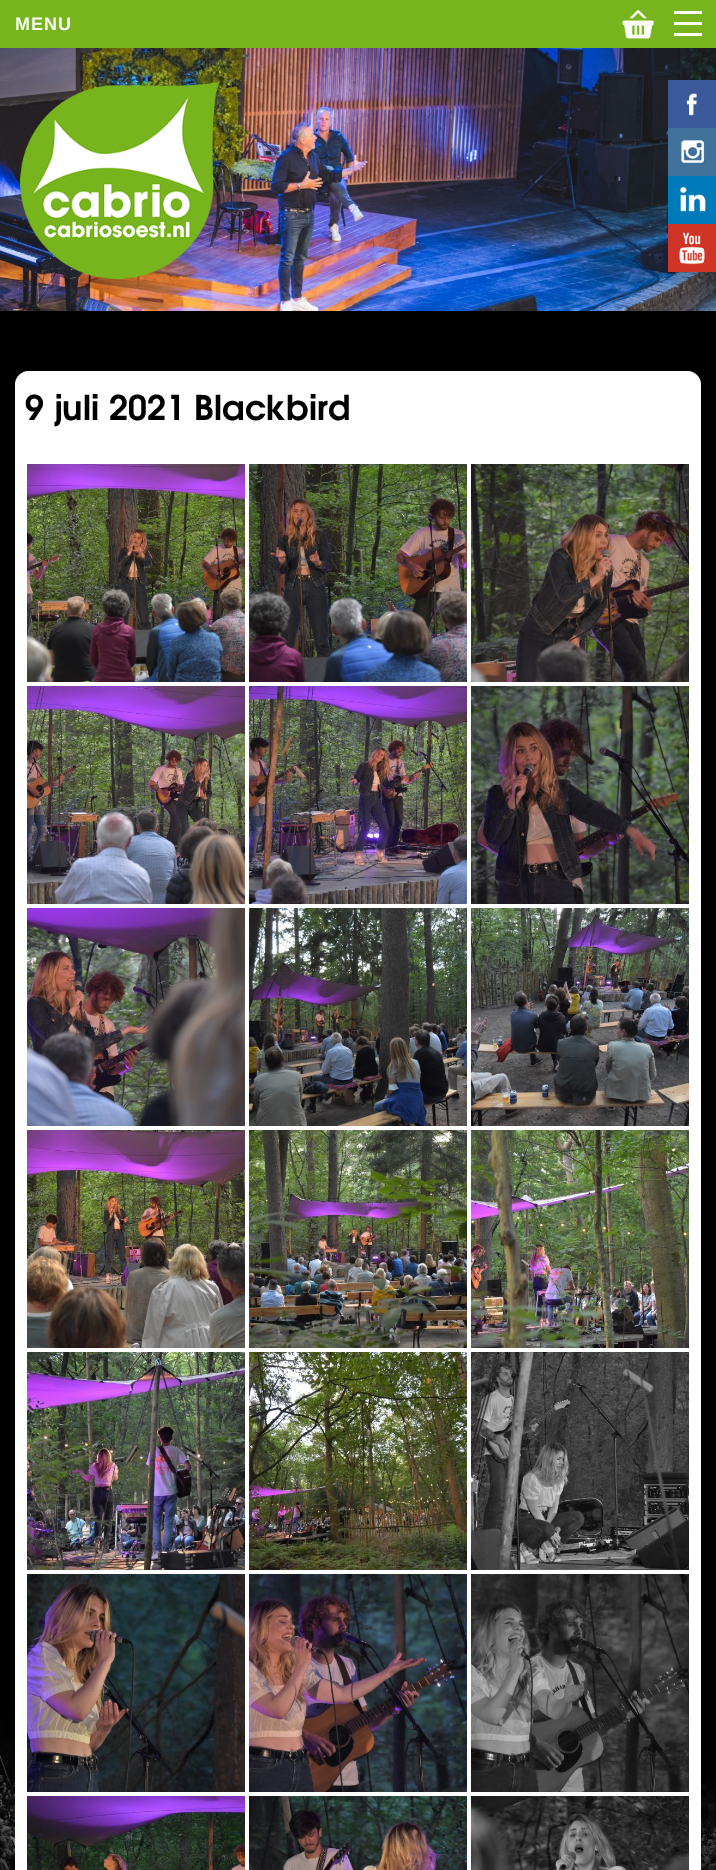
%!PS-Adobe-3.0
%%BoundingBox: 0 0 716 1870
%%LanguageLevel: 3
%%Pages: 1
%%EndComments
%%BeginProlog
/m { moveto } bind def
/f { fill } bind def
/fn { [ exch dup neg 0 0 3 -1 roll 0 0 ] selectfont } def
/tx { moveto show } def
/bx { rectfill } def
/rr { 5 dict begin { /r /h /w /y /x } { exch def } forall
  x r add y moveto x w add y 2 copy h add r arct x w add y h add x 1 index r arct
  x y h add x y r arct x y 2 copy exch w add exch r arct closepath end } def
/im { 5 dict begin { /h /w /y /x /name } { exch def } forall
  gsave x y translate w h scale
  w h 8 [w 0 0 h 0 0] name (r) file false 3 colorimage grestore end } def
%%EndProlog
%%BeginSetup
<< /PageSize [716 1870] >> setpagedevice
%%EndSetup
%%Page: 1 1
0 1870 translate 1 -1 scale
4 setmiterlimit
0 setgray
0 0 716 1870 bx
(image0.raw) 0 1700 716 170 im
0.467 0.706 0.114 setrgbcolor
0 0 716 48 bx
(image1.raw) 674 11 28 25 im
/LiberationSans-Bold 18 fn
1 setgray
15 30 m 1 0 (MENU) ashow
(image2.raw) 622 10 32 29 im
(image3.raw) 0 48 716 263 im
(image4.raw) 20 81 200 199 im
15 371 686 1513 14 rr f
/TeXGyreAdventor-Bold 34 fn
0 setgray
(9 juli 2021 Blackbird) 25 420 tx
(image5.raw) 27 464 218 218 im
(image6.raw) 249 464 218 218 im
(image7.raw) 471 464 218 218 im
(image8.raw) 27 686 218 218 im
(image9.raw) 249 686 218 218 im
(image10.raw) 471 686 218 218 im
(image11.raw) 27 908 218 218 im
(image12.raw) 249 908 218 218 im
(image13.raw) 471 908 218 218 im
(image14.raw) 27 1130 218 218 im
(image15.raw) 249 1130 218 218 im
(image16.raw) 471 1130 218 218 im
(image17.raw) 27 1352 218 218 im
(image18.raw) 249 1352 218 218 im
(image19.raw) 471 1352 218 218 im
(image20.raw) 27 1574 218 218 im
(image21.raw) 249 1574 218 218 im
(image22.raw) 471 1574 218 218 im
(image23.raw) 27 1796 218 74 im
(image24.raw) 249 1796 218 74 im
(image25.raw) 471 1796 218 74 im
(image26.raw) 668 80 48 48 im
0.251 0.447 0.608 setrgbcolor
668 128 48 48 bx
(image27.raw) 680 140 25 24 im
(image28.raw) 668 176 48 48 im
0.812 0.204 0.153 setrgbcolor
668 224 48 48 bx
(image29.raw) 679 232 26 33 im
showpage
%%EOF
